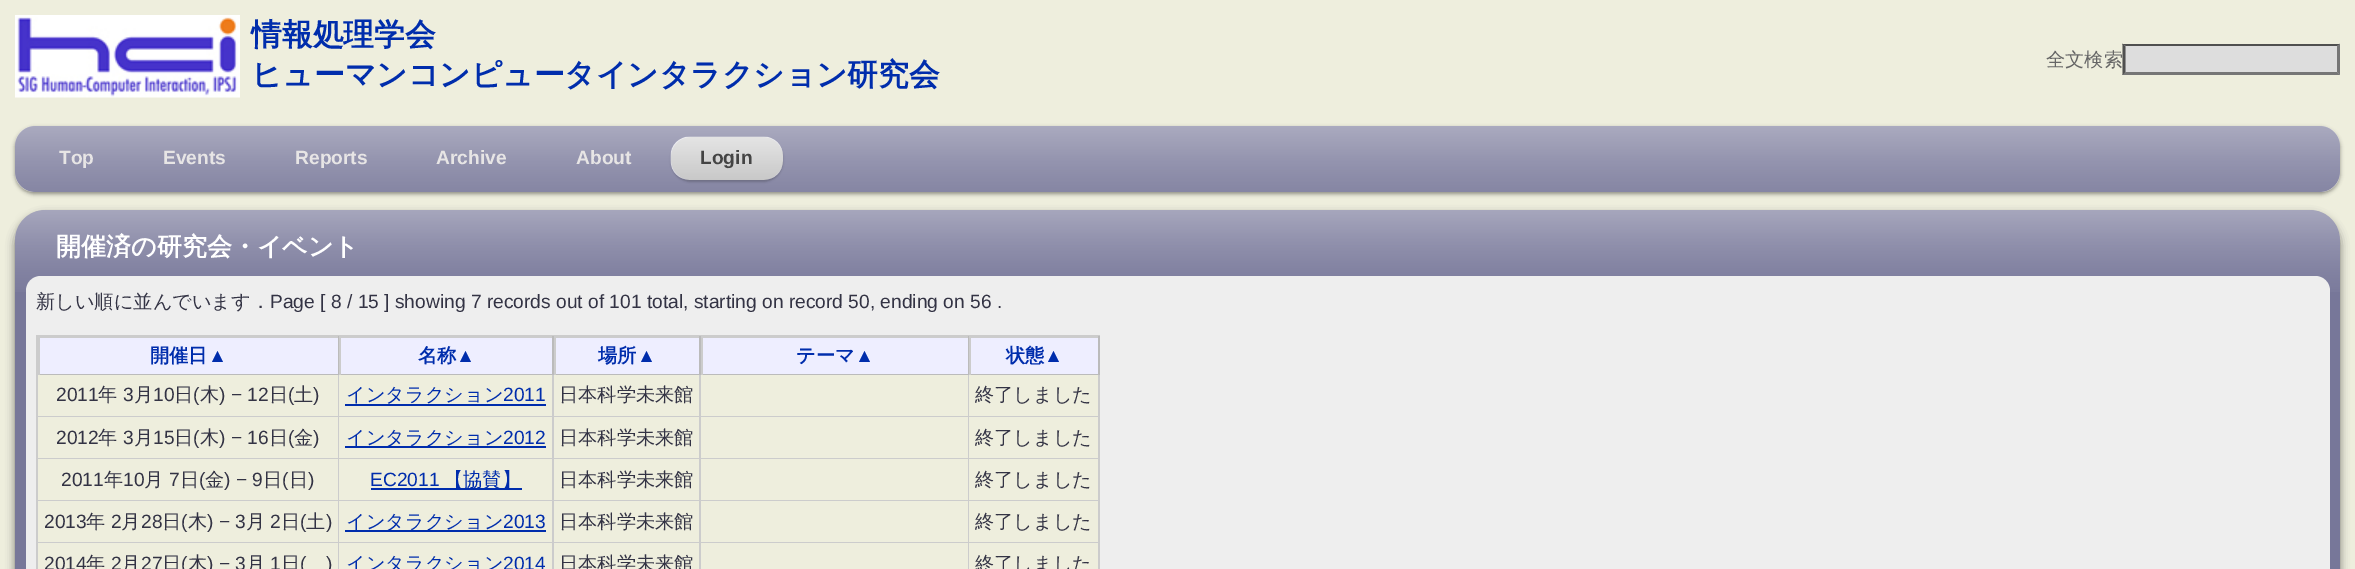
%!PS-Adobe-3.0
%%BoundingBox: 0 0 2355 569
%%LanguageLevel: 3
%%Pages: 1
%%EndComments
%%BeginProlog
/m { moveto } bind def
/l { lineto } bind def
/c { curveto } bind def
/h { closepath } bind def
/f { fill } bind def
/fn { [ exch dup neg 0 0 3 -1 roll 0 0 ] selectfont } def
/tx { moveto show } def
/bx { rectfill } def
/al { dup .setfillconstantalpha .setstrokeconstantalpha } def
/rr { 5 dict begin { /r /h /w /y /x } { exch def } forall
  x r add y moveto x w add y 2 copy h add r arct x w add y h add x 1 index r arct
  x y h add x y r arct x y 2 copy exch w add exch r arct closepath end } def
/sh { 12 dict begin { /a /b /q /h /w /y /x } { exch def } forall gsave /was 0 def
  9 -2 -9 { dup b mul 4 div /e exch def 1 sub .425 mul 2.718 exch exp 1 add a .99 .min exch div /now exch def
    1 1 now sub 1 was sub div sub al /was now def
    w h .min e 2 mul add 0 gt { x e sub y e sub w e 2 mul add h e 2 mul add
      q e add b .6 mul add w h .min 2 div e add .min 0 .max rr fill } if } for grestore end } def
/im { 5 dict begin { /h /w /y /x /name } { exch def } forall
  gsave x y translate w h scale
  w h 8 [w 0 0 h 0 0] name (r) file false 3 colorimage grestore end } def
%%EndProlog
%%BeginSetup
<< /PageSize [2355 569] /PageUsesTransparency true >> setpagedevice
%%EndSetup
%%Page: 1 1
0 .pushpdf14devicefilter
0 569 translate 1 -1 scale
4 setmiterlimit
0.933 0.933 0.867 setrgbcolor
0 0 2355 569 bx
(image0.raw) 15 15 225 83 im
/WenQuanYiZenHei-Bold 30.75 fn
0 0.176 0.675 setrgbcolor
(情報処理学会) 251 45 tx
(ヒューマンコンピュータインタラクション研究会) 251 85 tx
/WenQuanYiZenHei-Medium 19.2 fn
0.4 setgray
(全文検索) 2046 66 tx
0.867 setgray
2123 44 217 31 bx
0.31 setgray
2122 44 m 2340 44 l 2337 46 l 2126 46 l h f
0.463 setgray
2340 43.5 m 2340 75 l 2337 72 l 2337 46.5 l h f
2340 75 m 2122 75 l 2126 72 l 2337 72 l h f
0.31 setgray
2122.5 75 m 2122.5 43.5 l 2125.5 46.5 l 2125.5 72 l h f
0 setgray
15 128 2325 66 20 2 0.4 sh
0.49 0.49 0.616 setrgbcolor
15 126 2325 66 20 rr f
(image1.raw) 15 126 2325 66 im
/LiberationSans-Bold 19.2 fn
0.906 0.898 0.898 setrgbcolor
(Top) 59 164 tx
(Events) 163 164 tx
(Reports) 295 164 tx
(Archive) 436 164 tx
(About) 576 164 tx
0 setgray
671 138 112 44 20 1 0.2 sh
0.4 setgray
671 137 112 43 20 rr f
(image2.raw) 670 136 113 44 im
0.267 setgray
(Login) 700 164 tx
0 setgray
15 215 2325 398 30 4.5 0.5 sh
0.467 0.467 0.6 setrgbcolor
45 210 m 2310 210 l 2326.5 210 2340 223.5 2340 240 c 2340 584 l 2340 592.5 2333.5 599 2325 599 c 30 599 l 21.5 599 15 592.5 15 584 c 15 240 l 15 223.5 28.5 210 45 210 c h f
(image3.raw) 15 210 2325 82 im
/WenQuanYiZenHei-Bold 25 fn
1 setgray
(開催済の研究会・イベント) 56 255 tx
0.933 setgray
41 276 m 2315 276 l 2323.5 276 2330 282.5 2330 291 c 2330 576 l 2330 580.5 2326.5 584 2322 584 c 34 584 l 29.5 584 26 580.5 26 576 c 26 291 l 26 282.5 32.5 276 41 276 c h f
/WenQuanYiZenHei-Medium 19.2 fn
0.2 0.2 0.267 setrgbcolor
(新しい順に並んでいます．) 36 308 tx
/LiberationSans-Regular 19.2 fn
(Page [ 8 / 15 ] showing 7 records out of 101 total, starting on record 50, ending on 56 .) 270 308 tx
0.8 setgray
36 335 1064 1 bx
36 335 2 234 bx
0.933 0.933 1 setrgbcolor
40 338 298 36 bx
0.8 setgray
38 336 1062 2 bx
0.733 setgray
338 336 1 39 bx
38 374 301 1 bx
0.8 setgray
38 336 2 39 bx
/WenQuanYiZenHei-Bold 19.2 fn
0 0.176 0.675 setrgbcolor
(開催日) 150 362 tx
/LiberationSans-Bold 19.2 fn
(▲) 208 362 tx
0.933 0.933 1 setrgbcolor
341 338 211 36 bx
0.733 setgray
552 336 2 39 bx
339 374 215 1 bx
0.8 setgray
339 336 2 39 bx
/WenQuanYiZenHei-Bold 19.2 fn
0 0.176 0.675 setrgbcolor
(名称) 418 362 tx
/LiberationSans-Bold 19.2 fn
(▲) 456 362 tx
0.933 0.933 1 setrgbcolor
556 338 143 36 bx
0.733 setgray
699 336 2 39 bx
554 374 147 1 bx
0.8 setgray
554 336 2 39 bx
/WenQuanYiZenHei-Bold 19.2 fn
0 0.176 0.675 setrgbcolor
(場所) 598 362 tx
/LiberationSans-Bold 19.2 fn
(▲) 637 362 tx
0.933 0.933 1 setrgbcolor
703 338 265 36 bx
0.733 setgray
968 336 1 39 bx
701 374 268 1 bx
0.8 setgray
701 336 2 39 bx
/WenQuanYiZenHei-Bold 19.2 fn
0 0.176 0.675 setrgbcolor
(テーマ) 796 362 tx
/LiberationSans-Bold 19.2 fn
(▲) 855 362 tx
0.933 0.933 1 setrgbcolor
971 338 127 36 bx
0.733 setgray
1098 336 2 39 bx
969 374 131 1 bx
0.8 setgray
969 336 2 39 bx
/WenQuanYiZenHei-Bold 19.2 fn
0 0.176 0.675 setrgbcolor
(状態) 1006 362 tx
/LiberationSans-Bold 19.2 fn
(▲) 1044 362 tx
0.933 0.933 0.867 setrgbcolor
38 375 300 41 bx
0.8 setgray
338 375 1 194 bx
38 416 301 1 bx
/LiberationSans-Regular 19.2 fn
0.2 0.2 0.267 setrgbcolor
(2011) 56 401 tx
/WenQuanYiZenHei-Medium 19.2 fn
(年) 98 401 tx
/LiberationSans-Regular 19.2 fn
(3) 123 401 tx
/WenQuanYiZenHei-Medium 19.2 fn
(月) 134 401 tx
/LiberationSans-Regular 19.2 fn
(10) 153 401 tx
/WenQuanYiZenHei-Medium 19.2 fn
(日) 174 401 tx
/LiberationSans-Regular 19.2 fn
(\() 193 401 tx
/WenQuanYiZenHei-Medium 19.2 fn
(木) 200 401 tx
/LiberationSans-Regular 19.2 fn
(\) − 12) 219 401 tx
/WenQuanYiZenHei-Medium 19.2 fn
(日) 269 401 tx
/LiberationSans-Regular 19.2 fn
(\() 288 401 tx
/WenQuanYiZenHei-Medium 19.2 fn
(土) 294 401 tx
/LiberationSans-Regular 19.2 fn
(\)) 313 401 tx
0.933 0.933 0.867 setrgbcolor
339 375 213 41 bx
0.8 setgray
552 375 2 194 bx
339 416 215 1 bx
/WenQuanYiZenHei-Medium 19.2 fn
0 0.176 0.675 setrgbcolor
(インタラクション) 346 401 tx
345 404 201 2 bx
/LiberationSans-Regular 19.2 fn
(2011) 503 401 tx
0.933 0.933 0.867 setrgbcolor
554 375 145 41 bx
0.8 setgray
699 375 2 194 bx
554 416 147 1 bx
/WenQuanYiZenHei-Medium 19.2 fn
0.2 0.2 0.267 setrgbcolor
(日本科学未来館) 559 401 tx
0.933 0.933 0.867 setrgbcolor
701 375 267 41 bx
0.8 setgray
968 375 1 194 bx
701 416 268 1 bx
0.933 0.933 0.867 setrgbcolor
969 375 129 41 bx
0.8 setgray
1098 375 2 194 bx
969 416 131 1 bx
0.2 0.2 0.267 setrgbcolor
(終了しました) 975 401 tx
0.933 0.933 0.867 setrgbcolor
38 417 300 41 bx
0.8 setgray
38 458 1062 1 bx
/LiberationSans-Regular 19.2 fn
0.2 0.2 0.267 setrgbcolor
(2012) 56 444 tx
/WenQuanYiZenHei-Medium 19.2 fn
(年) 98 444 tx
/LiberationSans-Regular 19.2 fn
(3) 123 444 tx
/WenQuanYiZenHei-Medium 19.2 fn
(月) 134 444 tx
/LiberationSans-Regular 19.2 fn
(15) 153 444 tx
/WenQuanYiZenHei-Medium 19.2 fn
(日) 174 444 tx
/LiberationSans-Regular 19.2 fn
(\() 193 444 tx
/WenQuanYiZenHei-Medium 19.2 fn
(木) 200 444 tx
/LiberationSans-Regular 19.2 fn
(\) − 16) 219 444 tx
/WenQuanYiZenHei-Medium 19.2 fn
(日) 269 444 tx
/LiberationSans-Regular 19.2 fn
(\() 288 444 tx
/WenQuanYiZenHei-Medium 19.2 fn
(金) 294 444 tx
/LiberationSans-Regular 19.2 fn
(\)) 313 444 tx
0.933 0.933 0.867 setrgbcolor
339 417 213 41 bx
0 0.176 0.675 setrgbcolor
345 446 201 2 bx
/WenQuanYiZenHei-Medium 19.2 fn
(インタラクション) 346 444 tx
/LiberationSans-Regular 19.2 fn
(2012) 503 444 tx
0.933 0.933 0.867 setrgbcolor
554 417 145 41 bx
/WenQuanYiZenHei-Medium 19.2 fn
0.2 0.2 0.267 setrgbcolor
(日本科学未来館) 559 444 tx
0.933 0.933 0.867 setrgbcolor
701 417 267 41 bx
969 417 129 41 bx
0.2 0.2 0.267 setrgbcolor
(終了しました) 975 444 tx
0.933 0.933 0.867 setrgbcolor
38 459 300 41 bx
0.8 setgray
38 500 1062 1 bx
/LiberationSans-Regular 19.2 fn
0.2 0.2 0.267 setrgbcolor
(2011) 61 486 tx
/WenQuanYiZenHei-Medium 19.2 fn
(年) 104 486 tx
/LiberationSans-Regular 19.2 fn
(10) 123 486 tx
/WenQuanYiZenHei-Medium 19.2 fn
(月) 144 486 tx
/LiberationSans-Regular 19.2 fn
(7) 169 486 tx
/WenQuanYiZenHei-Medium 19.2 fn
(日) 180 486 tx
/LiberationSans-Regular 19.2 fn
(\() 199 486 tx
/WenQuanYiZenHei-Medium 19.2 fn
(金) 205 486 tx
/LiberationSans-Regular 19.2 fn
(\) − 9) 224 486 tx
/WenQuanYiZenHei-Medium 19.2 fn
(日) 263 486 tx
/LiberationSans-Regular 19.2 fn
(\() 282 486 tx
/WenQuanYiZenHei-Medium 19.2 fn
(日) 289 486 tx
/LiberationSans-Regular 19.2 fn
(\)) 308 486 tx
0.933 0.933 0.867 setrgbcolor
339 459 213 41 bx
0 0.176 0.675 setrgbcolor
(EC2011) 370 486 tx
371 488 151 2 bx
/WenQuanYiZenHei-Medium 19.2 fn
(【協賛】) 444 486 tx
0.933 0.933 0.867 setrgbcolor
554 459 145 41 bx
0.2 0.2 0.267 setrgbcolor
(日本科学未来館) 559 486 tx
0.933 0.933 0.867 setrgbcolor
701 459 267 41 bx
969 459 129 41 bx
0.2 0.2 0.267 setrgbcolor
(終了しました) 975 486 tx
0.933 0.933 0.867 setrgbcolor
38 501 300 41 bx
0.8 setgray
38 542 1062 1 bx
/LiberationSans-Regular 19.2 fn
0.2 0.2 0.267 setrgbcolor
(2013) 44 528 tx
/WenQuanYiZenHei-Medium 19.2 fn
(年) 86 528 tx
/LiberationSans-Regular 19.2 fn
(2) 111 528 tx
/WenQuanYiZenHei-Medium 19.2 fn
(月) 121 528 tx
/LiberationSans-Regular 19.2 fn
(28) 141 528 tx
/WenQuanYiZenHei-Medium 19.2 fn
(日) 162 528 tx
/LiberationSans-Regular 19.2 fn
(\() 181 528 tx
/WenQuanYiZenHei-Medium 19.2 fn
(木) 188 528 tx
/LiberationSans-Regular 19.2 fn
(\) − 3) 207 528 tx
/WenQuanYiZenHei-Medium 19.2 fn
(月) 246 528 tx
/LiberationSans-Regular 19.2 fn
(2) 270 528 tx
/WenQuanYiZenHei-Medium 19.2 fn
(日) 281 528 tx
/LiberationSans-Regular 19.2 fn
(\() 300 528 tx
/WenQuanYiZenHei-Medium 19.2 fn
(土) 306 528 tx
/LiberationSans-Regular 19.2 fn
(\)) 326 528 tx
0.933 0.933 0.867 setrgbcolor
339 501 213 41 bx
0 0.176 0.675 setrgbcolor
345 530 201 2 bx
/WenQuanYiZenHei-Medium 19.2 fn
(インタラクション) 346 528 tx
/LiberationSans-Regular 19.2 fn
(2013) 503 528 tx
0.933 0.933 0.867 setrgbcolor
554 501 145 41 bx
/WenQuanYiZenHei-Medium 19.2 fn
0.2 0.2 0.267 setrgbcolor
(日本科学未来館) 559 528 tx
0.933 0.933 0.867 setrgbcolor
701 501 267 41 bx
969 501 129 41 bx
0.2 0.2 0.267 setrgbcolor
(終了しました) 975 528 tx
0.933 0.933 0.867 setrgbcolor
38 543 300 26 bx
/LiberationSans-Regular 19.2 fn
0.2 0.2 0.267 setrgbcolor
(2014) 44 570 tx
/WenQuanYiZenHei-Medium 19.2 fn
(年) 86 570 tx
/LiberationSans-Regular 19.2 fn
(2) 111 570 tx
/WenQuanYiZenHei-Medium 19.2 fn
(月) 121 570 tx
/LiberationSans-Regular 19.2 fn
(27) 141 570 tx
/WenQuanYiZenHei-Medium 19.2 fn
(日) 162 570 tx
/LiberationSans-Regular 19.2 fn
(\() 181 570 tx
/WenQuanYiZenHei-Medium 19.2 fn
(木) 188 570 tx
/LiberationSans-Regular 19.2 fn
(\) − 3) 207 570 tx
/WenQuanYiZenHei-Medium 19.2 fn
(月) 246 570 tx
/LiberationSans-Regular 19.2 fn
(1) 270 570 tx
/WenQuanYiZenHei-Medium 19.2 fn
(日) 281 570 tx
/LiberationSans-Regular 19.2 fn
(\() 300 570 tx
(\)) 326 570 tx
0.933 0.933 0.867 setrgbcolor
339 543 213 26 bx
/WenQuanYiZenHei-Medium 19.2 fn
0 0.176 0.675 setrgbcolor
(インタラクション) 346 570 tx
/LiberationSans-Regular 19.2 fn
(2014) 503 570 tx
0.933 0.933 0.867 setrgbcolor
554 543 145 26 bx
/WenQuanYiZenHei-Medium 19.2 fn
0.2 0.2 0.267 setrgbcolor
(日本科学未来館) 559 570 tx
0.933 0.933 0.867 setrgbcolor
701 543 267 26 bx
969 543 129 26 bx
0.2 0.2 0.267 setrgbcolor
(終了しました) 975 570 tx
.poppdf14devicefilter showpage
%%EOF
